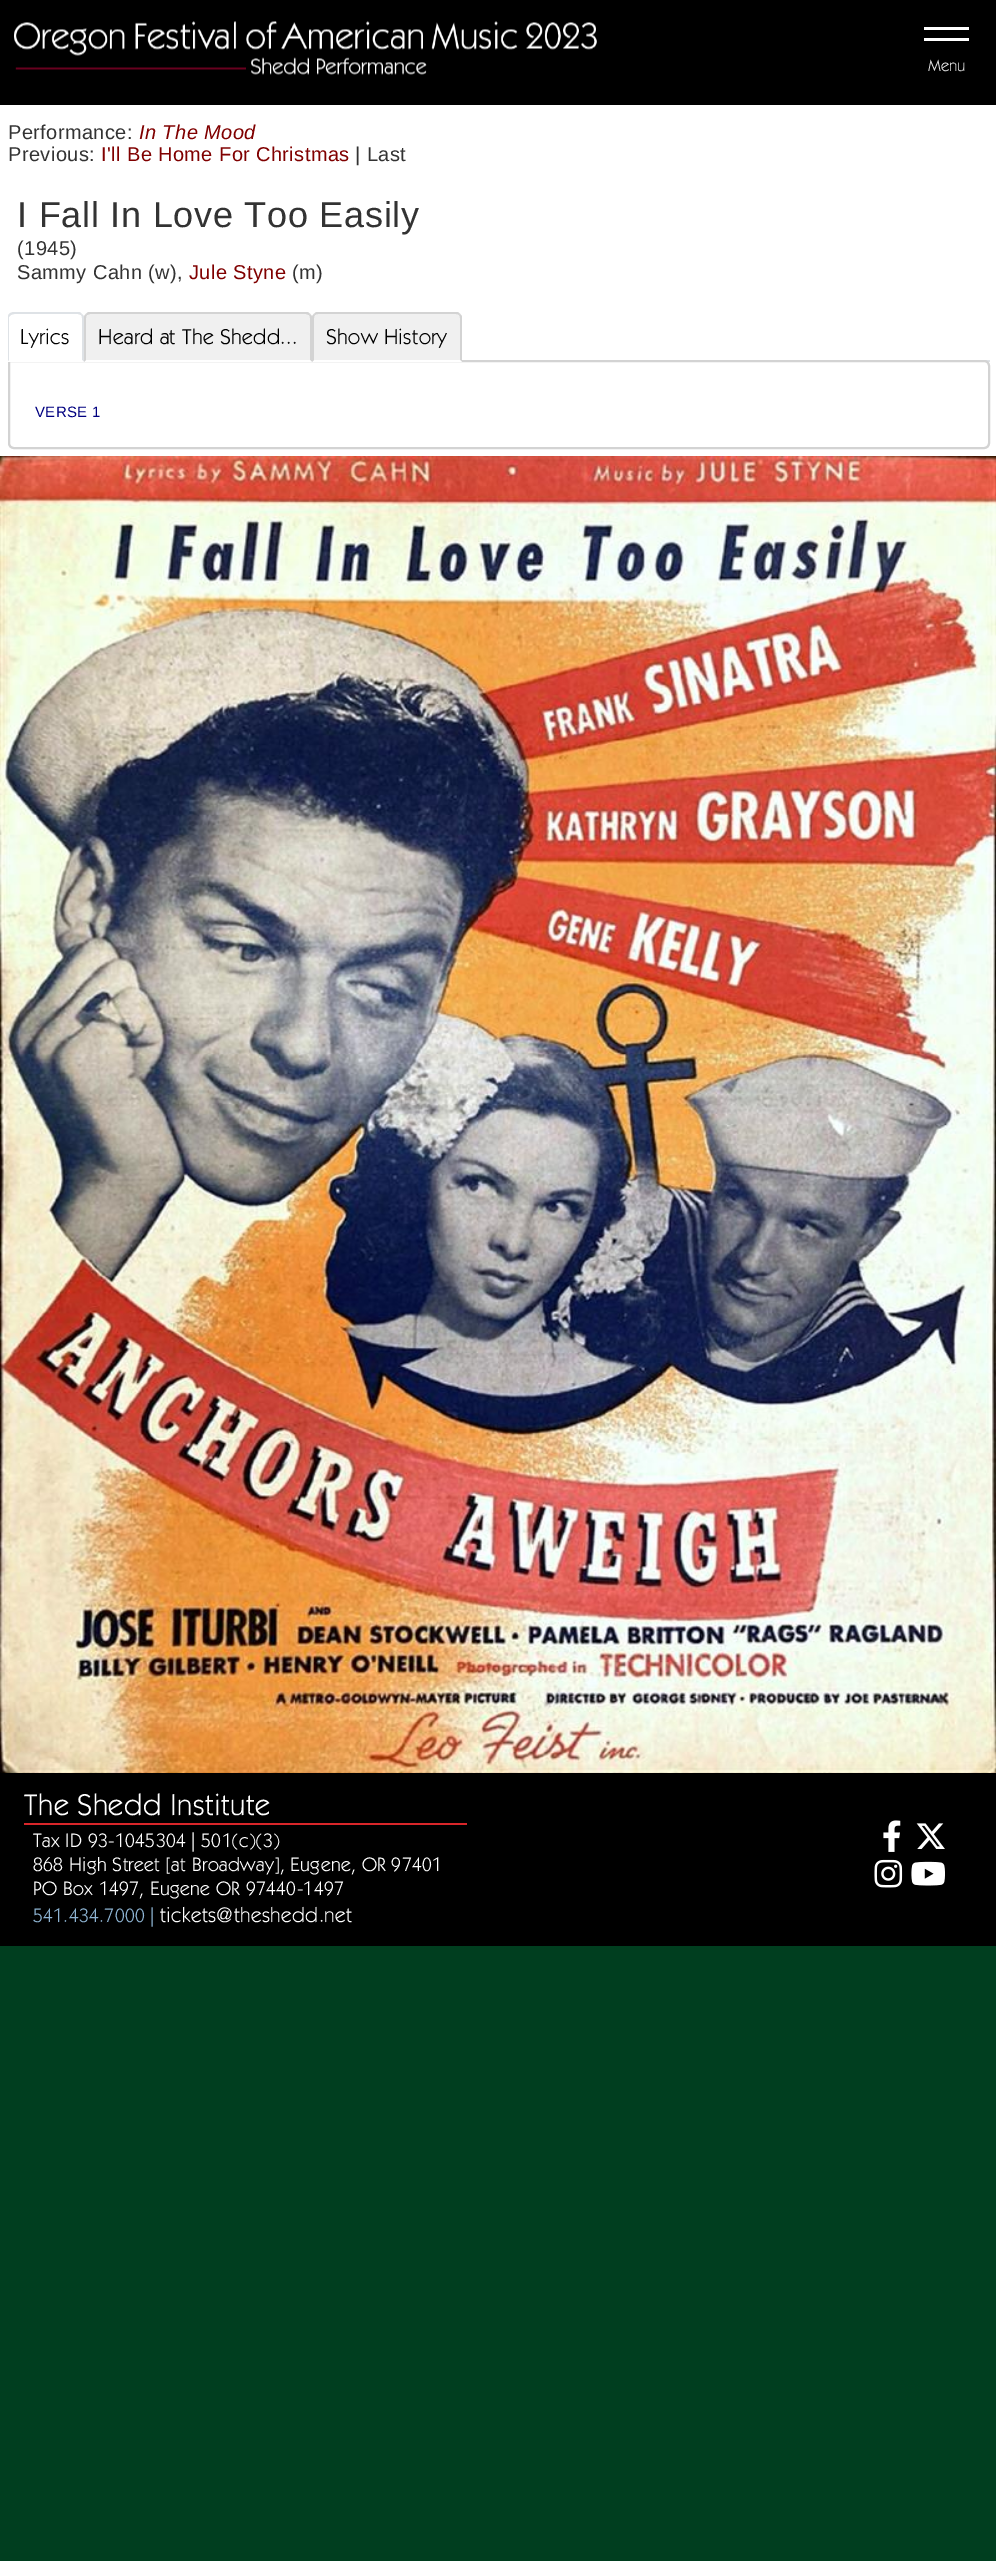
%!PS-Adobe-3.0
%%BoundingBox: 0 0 996 2561
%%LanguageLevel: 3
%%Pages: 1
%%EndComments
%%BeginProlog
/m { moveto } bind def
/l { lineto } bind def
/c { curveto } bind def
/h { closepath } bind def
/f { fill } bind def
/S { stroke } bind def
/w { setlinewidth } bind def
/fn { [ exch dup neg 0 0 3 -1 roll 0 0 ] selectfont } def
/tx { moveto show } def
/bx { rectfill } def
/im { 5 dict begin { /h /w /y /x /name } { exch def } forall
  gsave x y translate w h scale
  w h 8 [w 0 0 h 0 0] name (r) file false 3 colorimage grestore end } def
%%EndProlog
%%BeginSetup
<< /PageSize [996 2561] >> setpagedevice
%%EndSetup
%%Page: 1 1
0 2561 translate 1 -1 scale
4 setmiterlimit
0 0.243 0.122 setrgbcolor
0 0 996 2561 bx
0 setgray
0 0 996 105 bx
(image0.raw) 14 21 583 54 im
1 setgray
924 27 45 3 bx
924 38 45 3 bx
/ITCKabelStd-Regular 16.5 fn
0.902 setgray
(Menu) 928 71 tx
1 setgray
0 105 996 351 bx
/LiberationSans-Regular 20 fn
0.2 setgray
8 139 m 0.4 0 (Performance:) ashow
/LiberationSans-Italic 20 fn
0.502 0 0 setrgbcolor
139 139 m 0.4 0 (In The Mood) ashow
/LiberationSans-Regular 20 fn
0.2 setgray
8 161 m 0.4 0 (Previous:) ashow
0.502 0 0 setrgbcolor
101 161 m 0.4 0 (I'll Be Home For Christmas) ashow
0.2 setgray
355 161 m 0.4 0 (| Last) ashow
/LiberationSans-Regular 36 fn
17 227 m 0.75 0 (I Fall In Love Too Easily) ashow
/LiberationSans-Regular 20 fn
17 255 m 0.4 0 (\(1945\)) ashow
17 279 m 0.4 0 (Sammy Cahn \(w\),) ashow
0.502 0 0 setrgbcolor
189 279 m 0.4 0 (Jule Styne) ashow
0.2 setgray
292 279 m 0.4 0 (\(m\)) ashow
0.871 0.886 0.902 setrgbcolor
984 360 6 2 bx
0.827 setgray
2 w
9 361 m 984 361 l 987 361 989 363 989 366 c 989 443 l 989 446 987 448 984 448 c 14 448 l 11 448 9 446 9 443 c h S
1 setgray
14 312 m 78 312 l 81.5 312 84 314.5 84 318 c 84 362 l 8 362 l 8 318 l 8 314.5 10.5 312 14 312 c h f
0.871 0.886 0.902 setrgbcolor
14 312 m 12 312 10 313 9 314 c 11 315 l 14 313 23 314 25 314 c 78 314 l 81 315 l 82 314 l 81 313 80 312 78 312 c h f
84 362 m 84 318 l 84 316 83 315 82 314 c 81 315 l 82 316 82 317 82 318 c 82 360 l h f
1 setgray
84 362 m 8 362 l 9 360 l 82 360 l h f
0.871 0.886 0.902 setrgbcolor
9 314 m 8 315 8 317 8 318 c 8 361 l 9 360 l 9 317 l 11 315 l h f
/ITCKabelStd-Regular 21.5 fn
0 setgray
20 344 m 0.4 0 (Lyrics) ashow
0.941 setgray
90 312 m 306 312 l 309.5 312 312 314.5 312 318 c 312 362 l 84 362 l 84 318 l 84 314.5 86.5 312 90 312 c h f
0.827 setgray
90 312 m 88 312 87 313 86 314 c 87 315 l 90 314 l 270 314 l 306 314 l 309 315 l 310 314 l 309 313 308 312 306 312 c h f
312 362 m 312 318 l 312 316 311 315 310 314 c 309 315 l 310 316 310 317 310 318 c 310 360 l h f
1 setgray
312 362 m 84 362 l 86 360 l 310 360 l h f
0.827 setgray
84 362 m 86 360 l 86 318 l 86 317 86 316 87 315 c 86 314 l 85 315 84 316 84 318 c h f
0 setgray
98 344 m 0.4 0 (Heard at The Shedd...) ashow
0.941 setgray
318 312 m 456 312 l 459.5 312 462 314.5 462 318 c 462 362 l 312 362 l 312 318 l 312 314.5 314.5 312 318 312 c h f
0.827 setgray
318 312 m 316 312 315 313 314 314 c 315 315 l 316 314 317 314 318 314 c 456 314 l 457 314 458 314 459 315 c 460 314 l 459 313 458 312 456 312 c h f
462 362 m 462 318 l 462 316 461 315 460 314 c 459 315 l 460 316 460 317 460 318 c 460 360 l h f
1 setgray
462 362 m 312 362 l 314 360 l 460 360 l h f
0.827 setgray
312 362 m 314 360 l 314 318 l 314 317 314 316 315 315 c 314 314 l 313 315 312 316 312 318 c h f
0 setgray
326 344 m 0.4 0 (Show History) ashow
/LiberationSans-Regular 15 fn
0 0 0.502 setrgbcolor
35 417 m 0.25 0 (VERSE 1) ashow
(image1.raw) 0 456 996 1317 im
0 setgray
0 1773 996 173 bx
0.851 0.149 0.165 setrgbcolor
24 1823 443 2 bx
/ITCKabelStd-Regular 30 fn
1 setgray
24 1815 m 0.6 0 (The Shedd Institute) ashow
/ITCKabelStd-Regular 19.5 fn
33 1847 m 0.4 0 (Tax ID 93-1045304 | 501\(c\)\(3\)) ashow
33 1871 m 0.4 0 (868 High Street [at Broadway], Eugene, OR 97401) ashow
33 1895 m 0.4 0 (PO Box 1497, Eugene OR 97440-1497) ashow
0.557 0.706 0.827 setrgbcolor
33 1922 m 0.4 0 (541.434.7000 |) ashow
/ITCKabelStd-Regular 21 fn
1 setgray
160 1922 m 0.4 0 (tickets@theshedd.net) ashow
(image2.raw) 883 1820 18 32 im
(image3.raw) 916 1823 29 26 im
(image4.raw) 874 1859 29 29 im
(image5.raw) 911 1861 34 25 im
showpage
%%EOF
